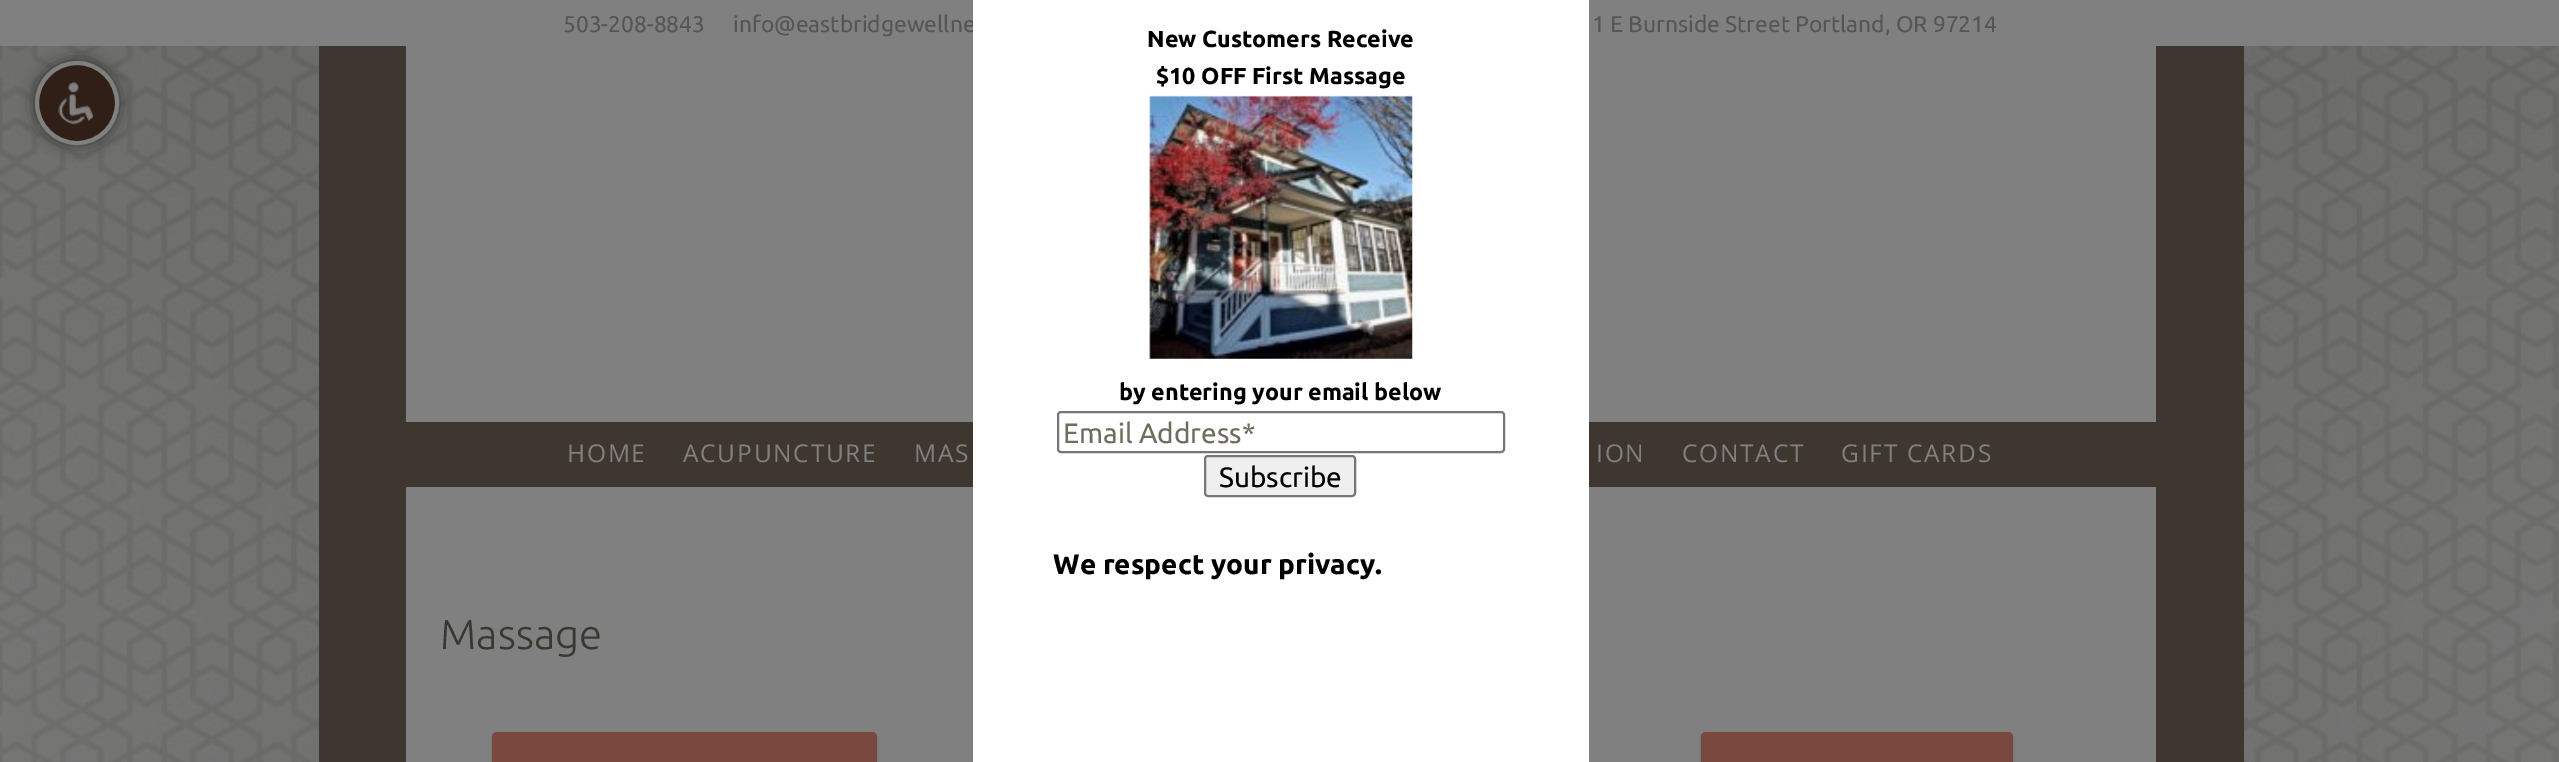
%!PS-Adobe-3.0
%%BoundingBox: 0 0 2559 762
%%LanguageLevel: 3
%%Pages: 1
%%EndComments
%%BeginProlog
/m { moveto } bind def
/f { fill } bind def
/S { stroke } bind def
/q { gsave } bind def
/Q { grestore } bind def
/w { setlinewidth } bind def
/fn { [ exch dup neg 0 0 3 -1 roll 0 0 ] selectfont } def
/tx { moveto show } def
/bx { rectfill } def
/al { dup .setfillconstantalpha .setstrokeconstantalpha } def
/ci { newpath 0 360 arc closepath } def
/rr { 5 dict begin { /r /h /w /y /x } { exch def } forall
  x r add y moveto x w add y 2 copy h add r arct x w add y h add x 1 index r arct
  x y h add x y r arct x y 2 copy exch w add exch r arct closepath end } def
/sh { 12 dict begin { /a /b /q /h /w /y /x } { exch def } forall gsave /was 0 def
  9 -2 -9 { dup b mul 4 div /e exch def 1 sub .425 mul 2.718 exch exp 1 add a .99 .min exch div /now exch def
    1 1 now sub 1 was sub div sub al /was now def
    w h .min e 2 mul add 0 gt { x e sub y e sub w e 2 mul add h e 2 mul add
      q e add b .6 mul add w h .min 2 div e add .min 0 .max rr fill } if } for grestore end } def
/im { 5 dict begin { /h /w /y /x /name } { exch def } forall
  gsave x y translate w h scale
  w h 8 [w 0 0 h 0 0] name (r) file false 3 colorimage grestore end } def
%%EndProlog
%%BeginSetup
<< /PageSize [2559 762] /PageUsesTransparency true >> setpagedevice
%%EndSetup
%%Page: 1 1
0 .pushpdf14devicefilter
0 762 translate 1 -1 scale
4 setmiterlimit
1 setgray
0 0 2559 762 bx
(image0.raw) 0 46 2559 716 im
0.502 setgray
0 0 2559 46 bx
/Ubuntu-Regular 22.75 fn
0.333 setgray
(503-208-8843) 563 32 tx
(info@eastbridgewellne) 733 32 tx
(1 E Burnside Street Portland, OR 97214) 1592 32 tx
0 setgray
35 61 84 84 42 8 0.5 sh
0.188 0.122 0.09 setrgbcolor
77 103 40 ci q f Q
0.502 setgray
4 w
S
(image1.raw) 58 82 36 43 im
406 46 1750 376 bx
0.239 0.216 0.184 setrgbcolor
406 422 1750 65 bx
0.502 setgray
406 487 1750 236 bx
406 714 1750 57 9 rr f
1 setgray
973 0 616 762 bx
/Ubuntu-Bold 23.25 fn
0 setgray
(New Customers Receive) 1147 47 tx
($10 OFF First Massage) 1156 84 tx
(image2.raw) 1149 95 264 264 im
(by entering your email below) 1119 400 tx
0.463 setgray
2 w
1058 412 446 40 3 rr S
/Ubuntu-Regular 28 fn
0.439 0.427 0.373 setrgbcolor
(Email Address*) 1063 443 tx
0.937 setgray
1205 456 150 40 3 rr q f Q
0.463 setgray
S
0 setgray
(Subscribe) 1219 487 tx
/Ubuntu-Bold 28 fn
(We respect your privacy.) 1053 574 tx
0.239 0.216 0.184 setrgbcolor
2156 46 88 716 bx
319 46 87 716 bx
/OpenSans-Regular 24.5 fn
0.502 setgray
567 462 m 1.75 0 (HOME) ashow
683 462 m 1.75 0 (ACUPUNCTURE) ashow
914 462 m 1.75 0 (MAS) ashow
1596 462 m 1.75 0 (ION) ashow
1682 462 m 1.75 0 (CONTACT) ashow
1841 462 m 1.75 0 (GIFT CARDS) ashow
/Ubuntu-Light 42 fn
0.22 0.216 0.188 setrgbcolor
(Massage) 440 649 tx
0 setgray
492 733 385 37 5 1 0.25 sh
0.475 0.282 0.247 setrgbcolor
492 732 385 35 5 rr f
0 setgray
1701 733 312 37 5 1 0.25 sh
0.475 0.282 0.247 setrgbcolor
1701 732 312 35 5 rr f
.poppdf14devicefilter showpage
%%EOF
